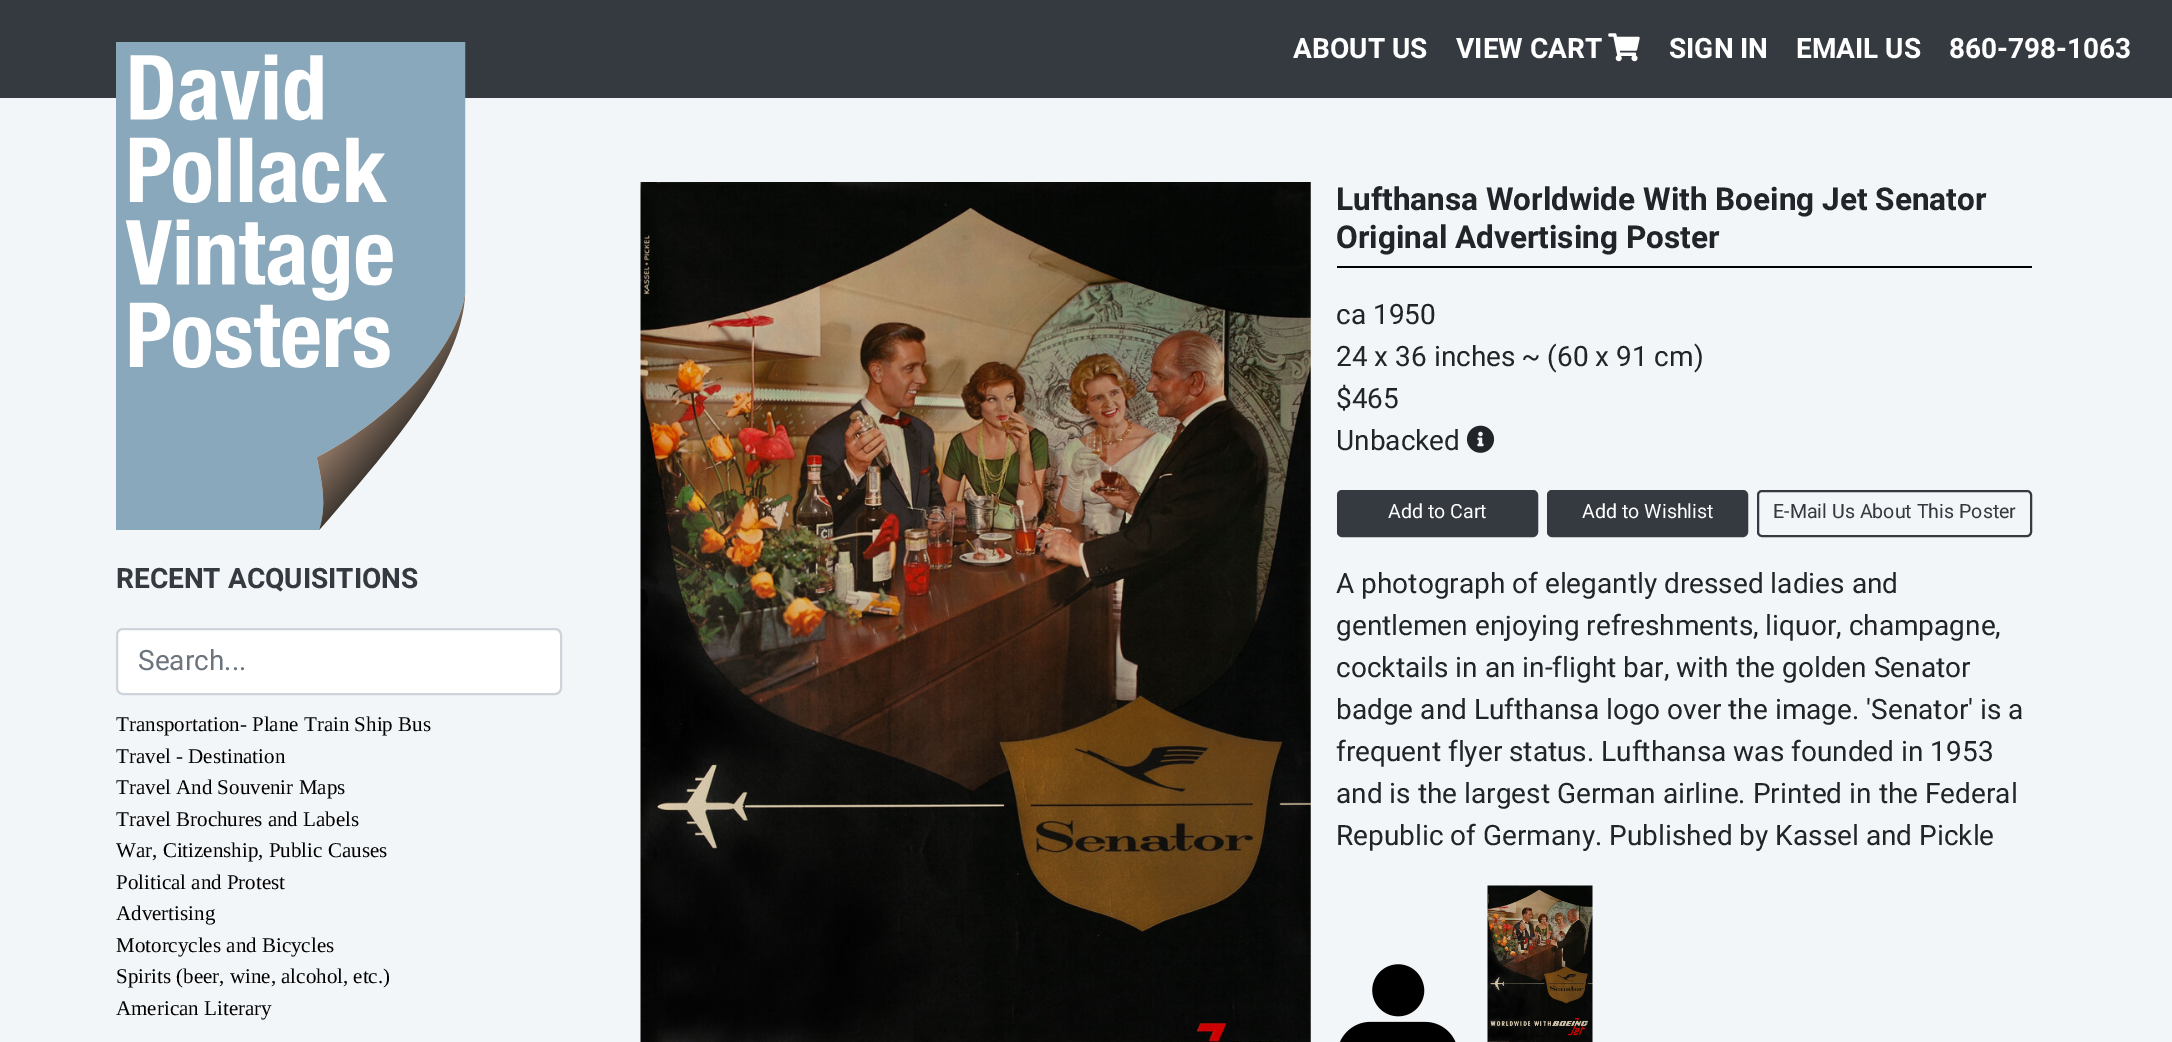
%!PS-Adobe-3.0
%%BoundingBox: 0 0 2172 1042
%%LanguageLevel: 3
%%Pages: 1
%%EndComments
%%BeginProlog
/f { fill } bind def
/S { stroke } bind def
/q { gsave } bind def
/Q { grestore } bind def
/w { setlinewidth } bind def
/fn { [ exch dup neg 0 0 3 -1 roll 0 0 ] selectfont } def
/tx { moveto show } def
/bx { rectfill } def
/rr { 5 dict begin { /r /h /w /y /x } { exch def } forall
  x r add y moveto x w add y 2 copy h add r arct x w add y h add x 1 index r arct
  x y h add x y r arct x y 2 copy exch w add exch r arct closepath end } def
/im { 5 dict begin { /h /w /y /x /name } { exch def } forall
  gsave x y translate w h scale
  w h 8 [w 0 0 h 0 0] name (r) file false 3 colorimage grestore end } def
%%EndProlog
%%BeginSetup
<< /PageSize [2172 1042] >> setpagedevice
%%EndSetup
%%Page: 1 1
0 1042 translate 1 -1 scale
4 setmiterlimit
0.953 0.965 0.973 setrgbcolor
0 0 2172 1042 bx
0.204 0.227 0.251 setrgbcolor
0 0 2172 98 bx
/Heebo-Bold 28 fn
1 setgray
(ABOUT US) 1293 58 tx
(VIEW CART) 1456 58 tx
(image0.raw) 1608 33 32 29 im
(SIGN IN) 1669 58 tx
(EMAIL US) 1796 58 tx
(860-798-1063) 1949 58 tx
(image1.raw) 116 42 350 488 im
0.204 0.227 0.251 setrgbcolor
(RECENT ACQUISITIONS) 116 588 tx
1 setgray
117 629 444 65 6 rr q f Q
0.808 0.831 0.855 setrgbcolor
2 w
S
/Heebo-Regular 28 fn
0.424 0.459 0.49 setrgbcolor
(Search...) 138 670 tx
/LiberationSerif-Regular 21 fn
0 setgray
(Transportation- Plane Train Ship Bus) 116 731 tx
(Travel - Destination) 116 763 tx
(Travel And Souvenir Maps) 116 794 tx
(Travel Brochures and Labels) 116 826 tx
(War, Citizenship, Public Causes) 116 857 tx
(Political and Protest) 116 889 tx
(Advertising) 116 920 tx
(Motorcycles and Bicycles) 116 952 tx
(Spirits \(beer, wine, alcohol, etc.\)) 116 983 tx
(American Literary) 116 1015 tx
(image2.raw) 640 182 671 860 im
1337 266 695 2 bx
/Heebo-Bold 31.5 fn
0.129 0.145 0.161 setrgbcolor
(Lufthansa Worldwide With Boeing Jet Senator) 1336 210 tx
(Original Advertising Poster) 1336 248 tx
/Heebo-Regular 28 fn
(ca 1950) 1336 324 tx
(24 x 36 inches ~ \(60 x 91 cm\)) 1336 366 tx
($465) 1336 408 tx
(Unbacked) 1336 450 tx
(image3.raw) 1466 425 29 28 im
0.204 0.227 0.251 setrgbcolor
1338 491 199 45 4 rr q f Q
S
/Heebo-Regular 19.6 fn
1 setgray
(Add to Cart) 1388 518 tx
0.204 0.227 0.251 setrgbcolor
1548 491 199 45 4 rr q f Q
S
1 setgray
(Add to Wishlist) 1582 518 tx
0.204 0.227 0.251 setrgbcolor
1758 491 273 45 4 rr S
(E-Mail Us About This Poster) 1773 518 tx
/Heebo-Regular 28 fn
0.129 0.145 0.161 setrgbcolor
(A photograph of elegantly dressed ladies and) 1336 593 tx
(gentlemen enjoying refreshments, liquor, champagne,) 1336 635 tx
(cocktails in an in-flight bar, with the golden Senator) 1336 677 tx
(badge and Lufthansa logo over the image. 'Senator' is a) 1336 719 tx
(frequent flyer status. Lufthansa was founded in 1953) 1336 761 tx
(and is the largest German airline. Printed in the Federal) 1336 803 tx
(Republic of Germany. Published by Kassel and Pickle) 1336 845 tx
(image4.raw) 1340 964 116 78 im
(image5.raw) 1487 885 106 157 im
showpage
%%EOF
